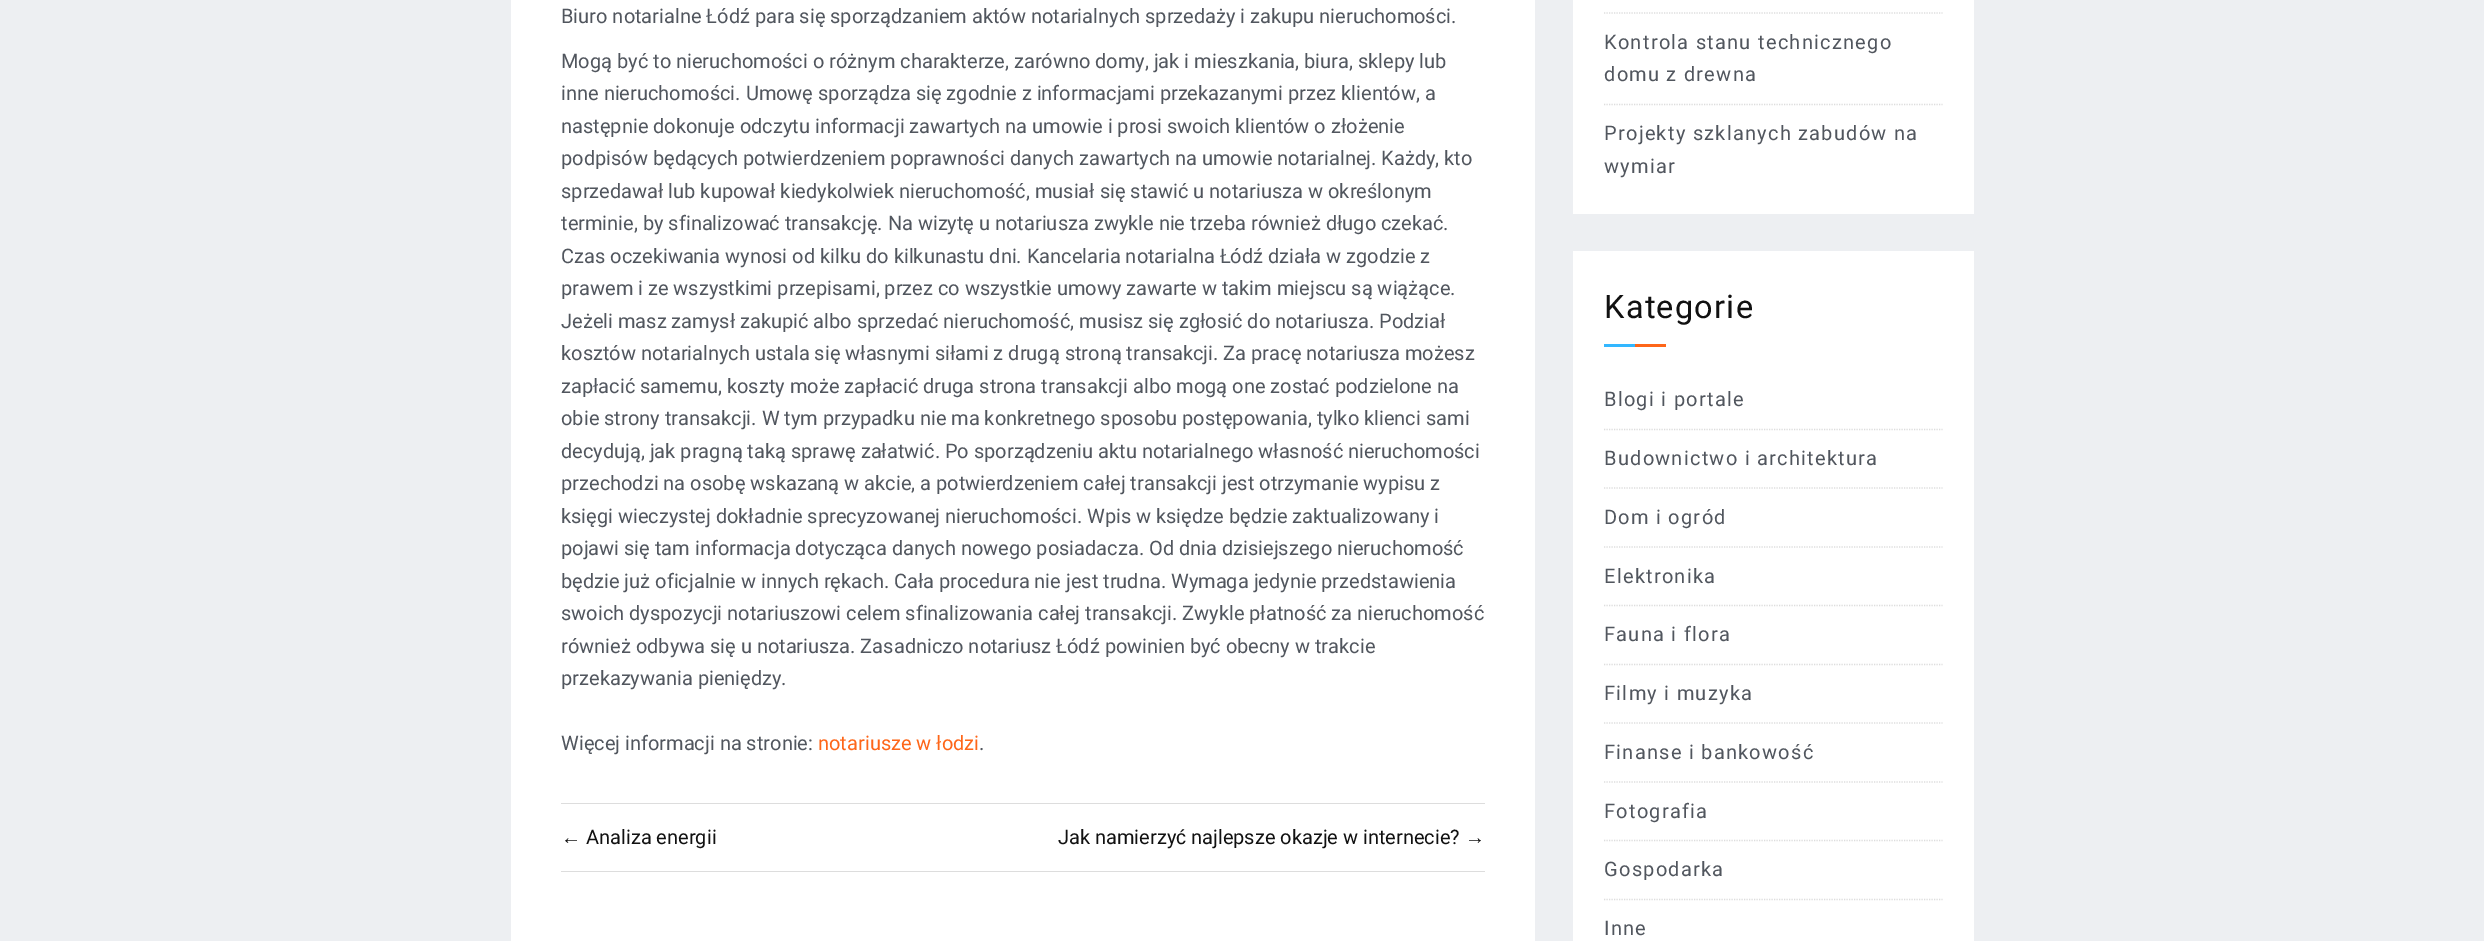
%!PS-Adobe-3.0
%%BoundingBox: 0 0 2484 941
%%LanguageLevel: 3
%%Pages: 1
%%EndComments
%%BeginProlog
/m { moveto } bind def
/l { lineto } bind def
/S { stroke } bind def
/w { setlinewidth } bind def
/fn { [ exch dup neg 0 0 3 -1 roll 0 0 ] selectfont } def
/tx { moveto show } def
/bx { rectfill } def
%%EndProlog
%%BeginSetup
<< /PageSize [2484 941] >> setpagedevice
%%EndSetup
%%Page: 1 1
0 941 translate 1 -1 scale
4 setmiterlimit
0.929 0.937 0.949 setrgbcolor
0 0 2484 941 bx
1 setgray
511 0 1024 941 bx
/Roboto-Regular 20 fn
0.318 0.337 0.369 setrgbcolor
(Biuro notarialne Łódź para się sporządzaniem aktów notarialnych sprzedaży i zakupu nieruchomości.) 561 23 tx
(Mogą być to nieruchomości o różnym charakterze, zarówno domy, jak i mieszkania, biura, sklepy lub) 561 68 tx
(inne nieruchomości. Umowę sporządza się zgodnie z informacjami przekazanymi przez klientów, a) 561 100 tx
(następnie dokonuje odczytu informacji zawartych na umowie i prosi swoich klientów o złożenie) 561 133 tx
(podpisów będących potwierdzeniem poprawności danych zawartych na umowie notarialnej. Każdy, kto) 561 165 tx
(sprzedawał lub kupował kiedykolwiek nieruchomość, musiał się stawić u notariusza w określonym) 561 198 tx
(terminie, by sfinalizować transakcję. Na wizytę u notariusza zwykle nie trzeba również długo czekać.) 561 230 tx
(Czas oczekiwania wynosi od kilku do kilkunastu dni. Kancelaria notarialna Łódź działa w zgodzie z) 561 263 tx
(prawem i ze wszystkimi przepisami, przez co wszystkie umowy zawarte w takim miejscu są wiążące.) 561 295 tx
(Jeżeli masz zamysł zakupić albo sprzedać nieruchomość, musisz się zgłosić do notariusza. Podział) 561 328 tx
(kosztów notarialnych ustala się własnymi siłami z drugą stroną transakcji. Za pracę notariusza możesz) 561 360 tx
(zapłacić samemu, koszty może zapłacić druga strona transakcji albo mogą one zostać podzielone na) 561 393 tx
(obie strony transakcji. W tym przypadku nie ma konkretnego sposobu postępowania, tylko klienci sami) 561 425 tx
(decydują, jak pragną taką sprawę załatwić. Po sporządzeniu aktu notarialnego własność nieruchomości) 561 458 tx
(przechodzi na osobę wskazaną w akcie, a potwierdzeniem całej transakcji jest otrzymanie wypisu z) 561 490 tx
(księgi wieczystej dokładnie sprecyzowanej nieruchomości. Wpis w księdze będzie zaktualizowany i) 561 523 tx
(pojawi się tam informacja dotycząca danych nowego posiadacza. Od dnia dzisiejszego nieruchomość) 561 555 tx
(będzie już oficjalnie w innych rękach. Cała procedura nie jest trudna. Wymaga jedynie przedstawienia) 561 588 tx
(swoich dyspozycji notariuszowi celem sfinalizowania całej transakcji. Zwykle płatność za nieruchomość) 561 620 tx
(również odbywa się u notariusza. Zasadniczo notariusz Łódź powinien być obecny w trakcie) 561 653 tx
(przekazywania pieniędzy.) 561 685 tx
(Więcej informacji na stronie:) 561 750 tx
0.996 0.4 0.098 setrgbcolor
(notariusze w łodzi) 818 750 tx
0.318 0.337 0.369 setrgbcolor
(.) 979 750 tx
0.867 setgray
561 803 924 1 bx
561 871 924 1 bx
/LiberationSans-Regular 20 fn
0.067 setgray
(←) 561 844 tx
/Roboto-Regular 20 fn
(Analiza energii) 586 844 tx
(Jak namierzy) 1058 844 tx
/LiberationSans-Regular 20 fn
(ć) 1176 844 tx
/Roboto-Regular 20 fn
(najlepsze okazje w internecie?) 1191 844 tx
/LiberationSans-Regular 20 fn
(→) 1465 844 tx
1 setgray
1573 0 401 214 bx
0.867 setgray
1.2 w
[1.25 1.25] 0 setdash
1604 13 m 1942.5 13 l S
1604 104.5 m 1942.5 104.5 l S
/Roboto-Regular 20 fn
0.318 0.337 0.369 setrgbcolor
1604 49 m 1.25 0 (Kontrola stanu technicznego) ashow
1604 81 m 1.25 0 (domu z drewna) ashow
1604 140 m 1.25 0 (Projekty szklanych zabudów na) ashow
1604 173 m 1.25 0 (wymiar) ashow
1 setgray
1573 251 401 690 bx
/Roboto-Regular 32.5 fn
0.067 setgray
1604 318 m 1.25 0 (Kategorie) ashow
0.2 0.718 1 setrgbcolor
1604 344 31 3 bx
0.996 0.4 0.098 setrgbcolor
1635 344 31 3 bx
0.867 setgray
1604 429.5 m 1942.5 429.5 l S
/Roboto-Regular 20 fn
0.318 0.337 0.369 setrgbcolor
1604 406 m 1.25 0 (Blogi i portale) ashow
0.867 setgray
1604 488 m 1942.5 488 l S
0.318 0.337 0.369 setrgbcolor
1604 465 m 1.25 0 (Budownictwo i architektura) ashow
0.867 setgray
1604 547 m 1942.5 547 l S
0.318 0.337 0.369 setrgbcolor
1604 524 m 1.25 0 (Dom i ogród) ashow
0.867 setgray
1604 605.5 m 1942.5 605.5 l S
0.318 0.337 0.369 setrgbcolor
1604 583 m 1.25 0 (Elektronika) ashow
0.867 setgray
1604 664.5 m 1942.5 664.5 l S
0.318 0.337 0.369 setrgbcolor
1604 641 m 1.25 0 (Fauna i flora) ashow
0.867 setgray
1604 723 m 1942.5 723 l S
0.318 0.337 0.369 setrgbcolor
1604 700 m 1.25 0 (Filmy i muzyka) ashow
0.867 setgray
1604 782 m 1942.5 782 l S
0.318 0.337 0.369 setrgbcolor
1604 759 m 1.25 0 (Finanse i bankowość) ashow
0.867 setgray
1604 840.5 m 1942.5 840.5 l S
0.318 0.337 0.369 setrgbcolor
1604 818 m 1.25 0 (Fotografia) ashow
0.867 setgray
1604 899.5 m 1942.5 899.5 l S
0.318 0.337 0.369 setrgbcolor
1604 876 m 1.25 0 (Gospodarka) ashow
1604 935 m 1.25 0 (Inne) ashow
showpage
%%EOF
